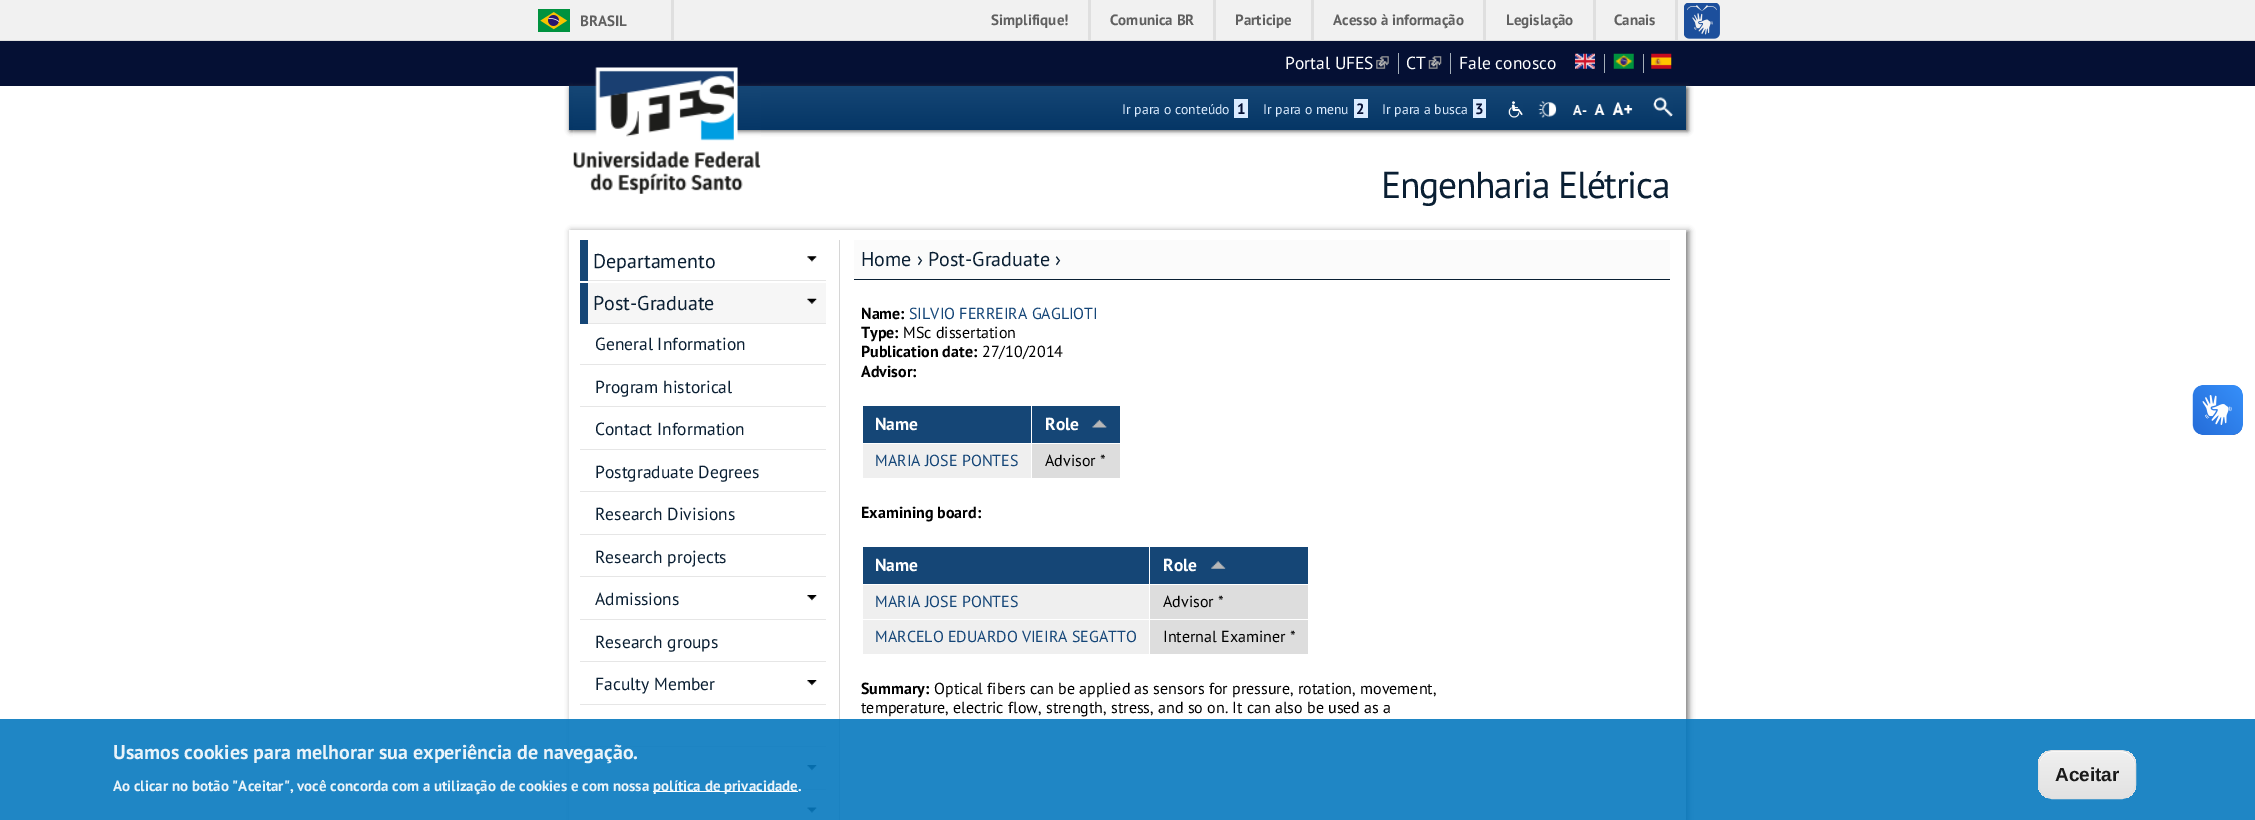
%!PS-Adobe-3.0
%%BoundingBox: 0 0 2255 820
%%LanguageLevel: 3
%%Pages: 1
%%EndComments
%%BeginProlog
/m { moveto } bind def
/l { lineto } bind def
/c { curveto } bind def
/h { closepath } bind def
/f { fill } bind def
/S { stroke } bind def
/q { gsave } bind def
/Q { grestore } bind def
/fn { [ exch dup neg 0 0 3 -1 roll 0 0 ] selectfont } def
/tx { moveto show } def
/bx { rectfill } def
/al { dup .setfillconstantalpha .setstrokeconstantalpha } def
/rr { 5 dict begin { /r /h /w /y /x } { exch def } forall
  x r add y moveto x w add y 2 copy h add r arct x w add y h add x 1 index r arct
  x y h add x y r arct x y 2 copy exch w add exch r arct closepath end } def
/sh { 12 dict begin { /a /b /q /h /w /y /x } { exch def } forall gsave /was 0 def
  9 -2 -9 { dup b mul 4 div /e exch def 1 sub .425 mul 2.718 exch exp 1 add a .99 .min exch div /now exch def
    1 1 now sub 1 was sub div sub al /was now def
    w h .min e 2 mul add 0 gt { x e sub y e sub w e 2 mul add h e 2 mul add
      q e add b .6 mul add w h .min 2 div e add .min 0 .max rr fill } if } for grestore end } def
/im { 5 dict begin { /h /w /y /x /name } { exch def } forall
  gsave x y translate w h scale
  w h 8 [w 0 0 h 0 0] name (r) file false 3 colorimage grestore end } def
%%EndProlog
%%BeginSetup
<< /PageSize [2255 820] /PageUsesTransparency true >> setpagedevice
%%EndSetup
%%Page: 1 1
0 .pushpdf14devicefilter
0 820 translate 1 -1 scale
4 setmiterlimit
1 setgray
0 0 2255 820 bx
0.945 setgray
0 0 2255 40 bx
0.875 setgray
0 40 2255 1 bx
671 0 3 40 bx
(image0.raw) 538 9 32 23 im
/PTSans-Bold 15 fn
0.376 setgray
(BRASIL) 580 26 tx
0.875 setgray
1088 0 3 40 bx
0.376 setgray
(Simplifique!) 991 25 tx
0.875 setgray
1213 0 3 40 bx
0.376 setgray
(Comunica BR) 1110 25 tx
0.875 setgray
1311 0 3 40 bx
0.376 setgray
(Participe) 1235 25 tx
0.875 setgray
1483 0 3 40 bx
0.376 setgray
(Acesso à informação) 1333 25 tx
0.875 setgray
1593 0 3 40 bx
0.376 setgray
(Legislação) 1506 25 tx
0.875 setgray
1675 0 3 40 bx
0.376 setgray
(Canais) 1614 25 tx
(image1.raw) 1684 3 36 36 im
0.02 0.063 0.204 setrgbcolor
0 41 2255 45 bx
0.643 0.682 0.725 setrgbcolor
1398 53 1 21 bx
/PTSans-Regular 17.5 fn
1 setgray
(Portal UFES) 1285 69 tx
(image2.raw) 1376 56 13 13 im
0.643 0.682 0.725 setrgbcolor
1450 53 1 21 bx
1 setgray
(CT) 1406 69 tx
(image3.raw) 1428 56 14 13 im
(Fale conosco) 1459 69 tx
0.643 0.682 0.725 setrgbcolor
1604 54 1 19 bx
(image4.raw) 1575 53 20 16 im
1643 54 1 19 bx
(image5.raw) 1613 53 21 16 im
(image6.raw) 1651 53 21 16 im
0.349 setgray
570 88 1118 43 0 2.5 1 sh
q 569 86 m 1686 86 l 1686 130 l 569 130 l h clip newpath
<< /ShadingType 2 /ColorSpace /DeviceRGB /Coords [1128 86 1128 130] /Extend [true true] /Function << /FunctionType 2 /Domain [0 1] /C0 [0.082 0.275 0.459] /C1 [0.02 0.212 0.4] /N 1 >> >> shfill Q
(image7.raw) 573 67 188 127 im
/PTSans-Regular 13.75 fn
0.863 0.925 1 setrgbcolor
(Ir para o conteúdo) 1122 114 tx
1234 99 14 19 bx
/PTSans-Bold 15 fn
0.02 0.063 0.204 setrgbcolor
(1) 1237 114 tx
/PTSans-Regular 13.75 fn
0.863 0.925 1 setrgbcolor
(Ir para o menu) 1263 114 tx
1354 99 14 19 bx
/PTSans-Bold 15 fn
0.02 0.063 0.204 setrgbcolor
(2) 1356 114 tx
/PTSans-Regular 13.75 fn
0.863 0.925 1 setrgbcolor
(Ir para a busca) 1382 114 tx
1473 99 13 19 bx
/PTSans-Bold 15 fn
0.02 0.063 0.204 setrgbcolor
(3) 1475 114 tx
(image8.raw) 1508 101 15 17 im
(image9.raw) 1538 101 19 17 im
(image10.raw) 1573 105 14 10 im
(image11.raw) 1594 104 11 11 im
(image12.raw) 1612 102 21 13 im
(image13.raw) 1653 97 20 20 im
/PTSans-Regular 37.5 fn
0.039 0.122 0.2 setrgbcolor
1381 198 m -1.25 0 (Engenharia Elétrica) ashow
q
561 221 m 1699 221 l 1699 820 l 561 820 l h 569 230 m 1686 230 l 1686 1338 l 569 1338 l h eoclip newpath
0.502 setgray
571 231 1118 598 0 3 1 sh
Q
0.082 0.275 0.463 setrgbcolor
580 240 8 41 bx
(image14.raw) 807 256 10 6 im
0.902 setgray
588 280 238 1 bx
/PTSans-Regular 20 fn
0.039 0.122 0.2 setrgbcolor
(Departamento) 593 268 tx
0.082 0.275 0.463 setrgbcolor
580 283 8 41 bx
0.965 setgray
588 283 238 40 bx
(image15.raw) 807 298 10 6 im
0.902 setgray
588 323 238 1 bx
0.039 0.122 0.2 setrgbcolor
(Post-Graduate) 593 310 tx
0.902 setgray
580 364 246 1 bx
/PTSans-Regular 17.5 fn
0.039 0.122 0.2 setrgbcolor
(General Information) 595 350 tx
0.902 setgray
580 406 246 1 bx
0.039 0.122 0.2 setrgbcolor
(Program historical) 595 393 tx
0.902 setgray
580 449 246 1 bx
0.039 0.122 0.2 setrgbcolor
(Contact Information) 595 435 tx
0.902 setgray
580 491 246 1 bx
0.039 0.122 0.2 setrgbcolor
(Postgraduate Degrees) 595 478 tx
0.902 setgray
580 534 246 1 bx
0.039 0.122 0.2 setrgbcolor
(Research Divisions) 595 520 tx
0.902 setgray
580 576 246 1 bx
0.039 0.122 0.2 setrgbcolor
(Research projects) 595 563 tx
(image16.raw) 807 595 10 6 im
0.902 setgray
580 619 246 1 bx
0.039 0.122 0.2 setrgbcolor
(Admissions) 595 605 tx
0.902 setgray
580 661 246 1 bx
0.039 0.122 0.2 setrgbcolor
(Research groups) 595 648 tx
(image16.raw) 807 680 10 6 im
0.902 setgray
580 704 246 1 bx
0.039 0.122 0.2 setrgbcolor
(Faculty Member) 595 690 tx
0.902 setgray
580 746 246 1 bx
(image16.raw) 807 765 10 6 im
580 789 246 1 bx
(image17.raw) 807 807 10 6 im
0.839 setgray
839 240 1 580 bx
0.984 setgray
854 240 816 39 bx
0.039 0.122 0.2 setrgbcolor
854 279 816 1 bx
/PTSans-Regular 20 fn
(Home › Post-Graduate ›) 861 266 tx
/PTSans-Bold 16 fn
0 setgray
(Name:) 861 319 tx
/PTSans-Regular 16 fn
0.082 0.275 0.471 setrgbcolor
(SILVIO FERREIRA GAGLIOTI) 909 319 tx
/PTSans-Bold 16 fn
0 setgray
(Type:) 861 338 tx
/PTSans-Regular 16 fn
(MSc dissertation) 903 338 tx
/PTSans-Bold 16 fn
(Publication date:) 861 357 tx
/PTSans-Regular 16 fn
(27/10/2014) 982 357 tx
/PTSans-Bold 16 fn
(Advisor:) 861 377 tx
0.082 0.275 0.463 setrgbcolor
863 406 168 37 bx
/PTSans-Bold 17.5 fn
1 setgray
(Name) 875 430 tx
0.082 0.275 0.463 setrgbcolor
1032 406 88 37 bx
1 setgray
(Role) 1045 430 tx
(image18.raw) 1092 419 15 9 im
0.937 setgray
863 444 168 34 bx
/PTSans-Regular 16 fn
0.082 0.275 0.471 setrgbcolor
(MARIA JOSE PONTES) 875 466 tx
0.867 setgray
1032 444 88 34 bx
0 setgray
(Advisor *) 1045 466 tx
/PTSans-Bold 16 fn
(Examining board:) 861 518 tx
0.082 0.275 0.463 setrgbcolor
863 547 286 37 bx
/PTSans-Bold 17.5 fn
1 setgray
(Name) 875 571 tx
0.082 0.275 0.463 setrgbcolor
1150 547 158 37 bx
1 setgray
(Role) 1163 571 tx
(image19.raw) 1211 561 15 8 im
0.937 setgray
863 585 286 34 bx
/PTSans-Regular 16 fn
0.082 0.275 0.471 setrgbcolor
(MARIA JOSE PONTES) 875 607 tx
0.867 setgray
1150 585 158 34 bx
0 setgray
(Advisor *) 1163 607 tx
0.937 setgray
863 620 286 34 bx
0.082 0.275 0.471 setrgbcolor
(MARCELO EDUARDO VIEIRA SEGATTO) 875 642 tx
0.867 setgray
1150 620 158 34 bx
0 setgray
(Internal Examiner *) 1163 642 tx
/PTSans-Bold 16 fn
(Summary:) 861 694 tx
/PTSans-Regular 16 fn
(Optical fibers can be applied as sensors for pressure, rotation, movement,) 934 694 tx
(temperature, electric flow, strength, stress, and so on. It can also be used as a) 861 713 tx
(image20.raw) 2192 385 51 50 im
(image21.raw) 2193 385 50 50 im
0.9 al
0.027 0.475 0.749 setrgbcolor
0 719 2255 101 bx
/PTSans-Bold 20 fn
1 al
0.914 0.953 0.976 setrgbcolor
(Usamos cookies para melhorar sua experiência de navegação.) 113 759 tx
/PTSans-Bold 15 fn
(Ao clicar no botão "Aceitar", você concorda com a utilização de cookies e com nossa) 113 791 tx
1 setgray
653 791 145 1 bx
0.914 0.953 0.976 setrgbcolor
(política de privacidade) 653 791 tx
(.) 798 791 tx
q
2038 750 98 49 15 rr clip newpath
q 2038 751 m 2136 751 l 2136 798 l 2038 798 l h clip newpath
<< /ShadingType 2 /ColorSpace /DeviceRGB /Coords [2087 751 2087 798] /Extend [true true] /Function << /FunctionType 3 /Domain [0 1] /Functions [<< /FunctionType 2 /Domain [0 1] /C0 [0.937 0.937 0.937] /C1 [0.937 0.937 0.937] /N 1 >> << /FunctionType 2 /Domain [0 1] /C0 [0.937 0.937 0.937] /C1 [0.886 0.886 0.886] /N 1 >>] /Bounds [0.05] /Encode [0 1 0 1] >> >> shfill Q
Q
1 setgray
2052 752 m 2121 752 l 2129 752 2135 759 2135 766 c 2135 750 2122 751 2110 751 c 2064 751 l 2052 751 2039 750 2039 766 c 2039 759 2045 752 2052 752 c h f
0.878 setgray
2038.5 750.5 97 48 14.5 rr S
/LiberationSans-Bold 19 fn
0.102 setgray
(Aceitar) 2055 781 tx
.poppdf14devicefilter showpage
%%EOF
